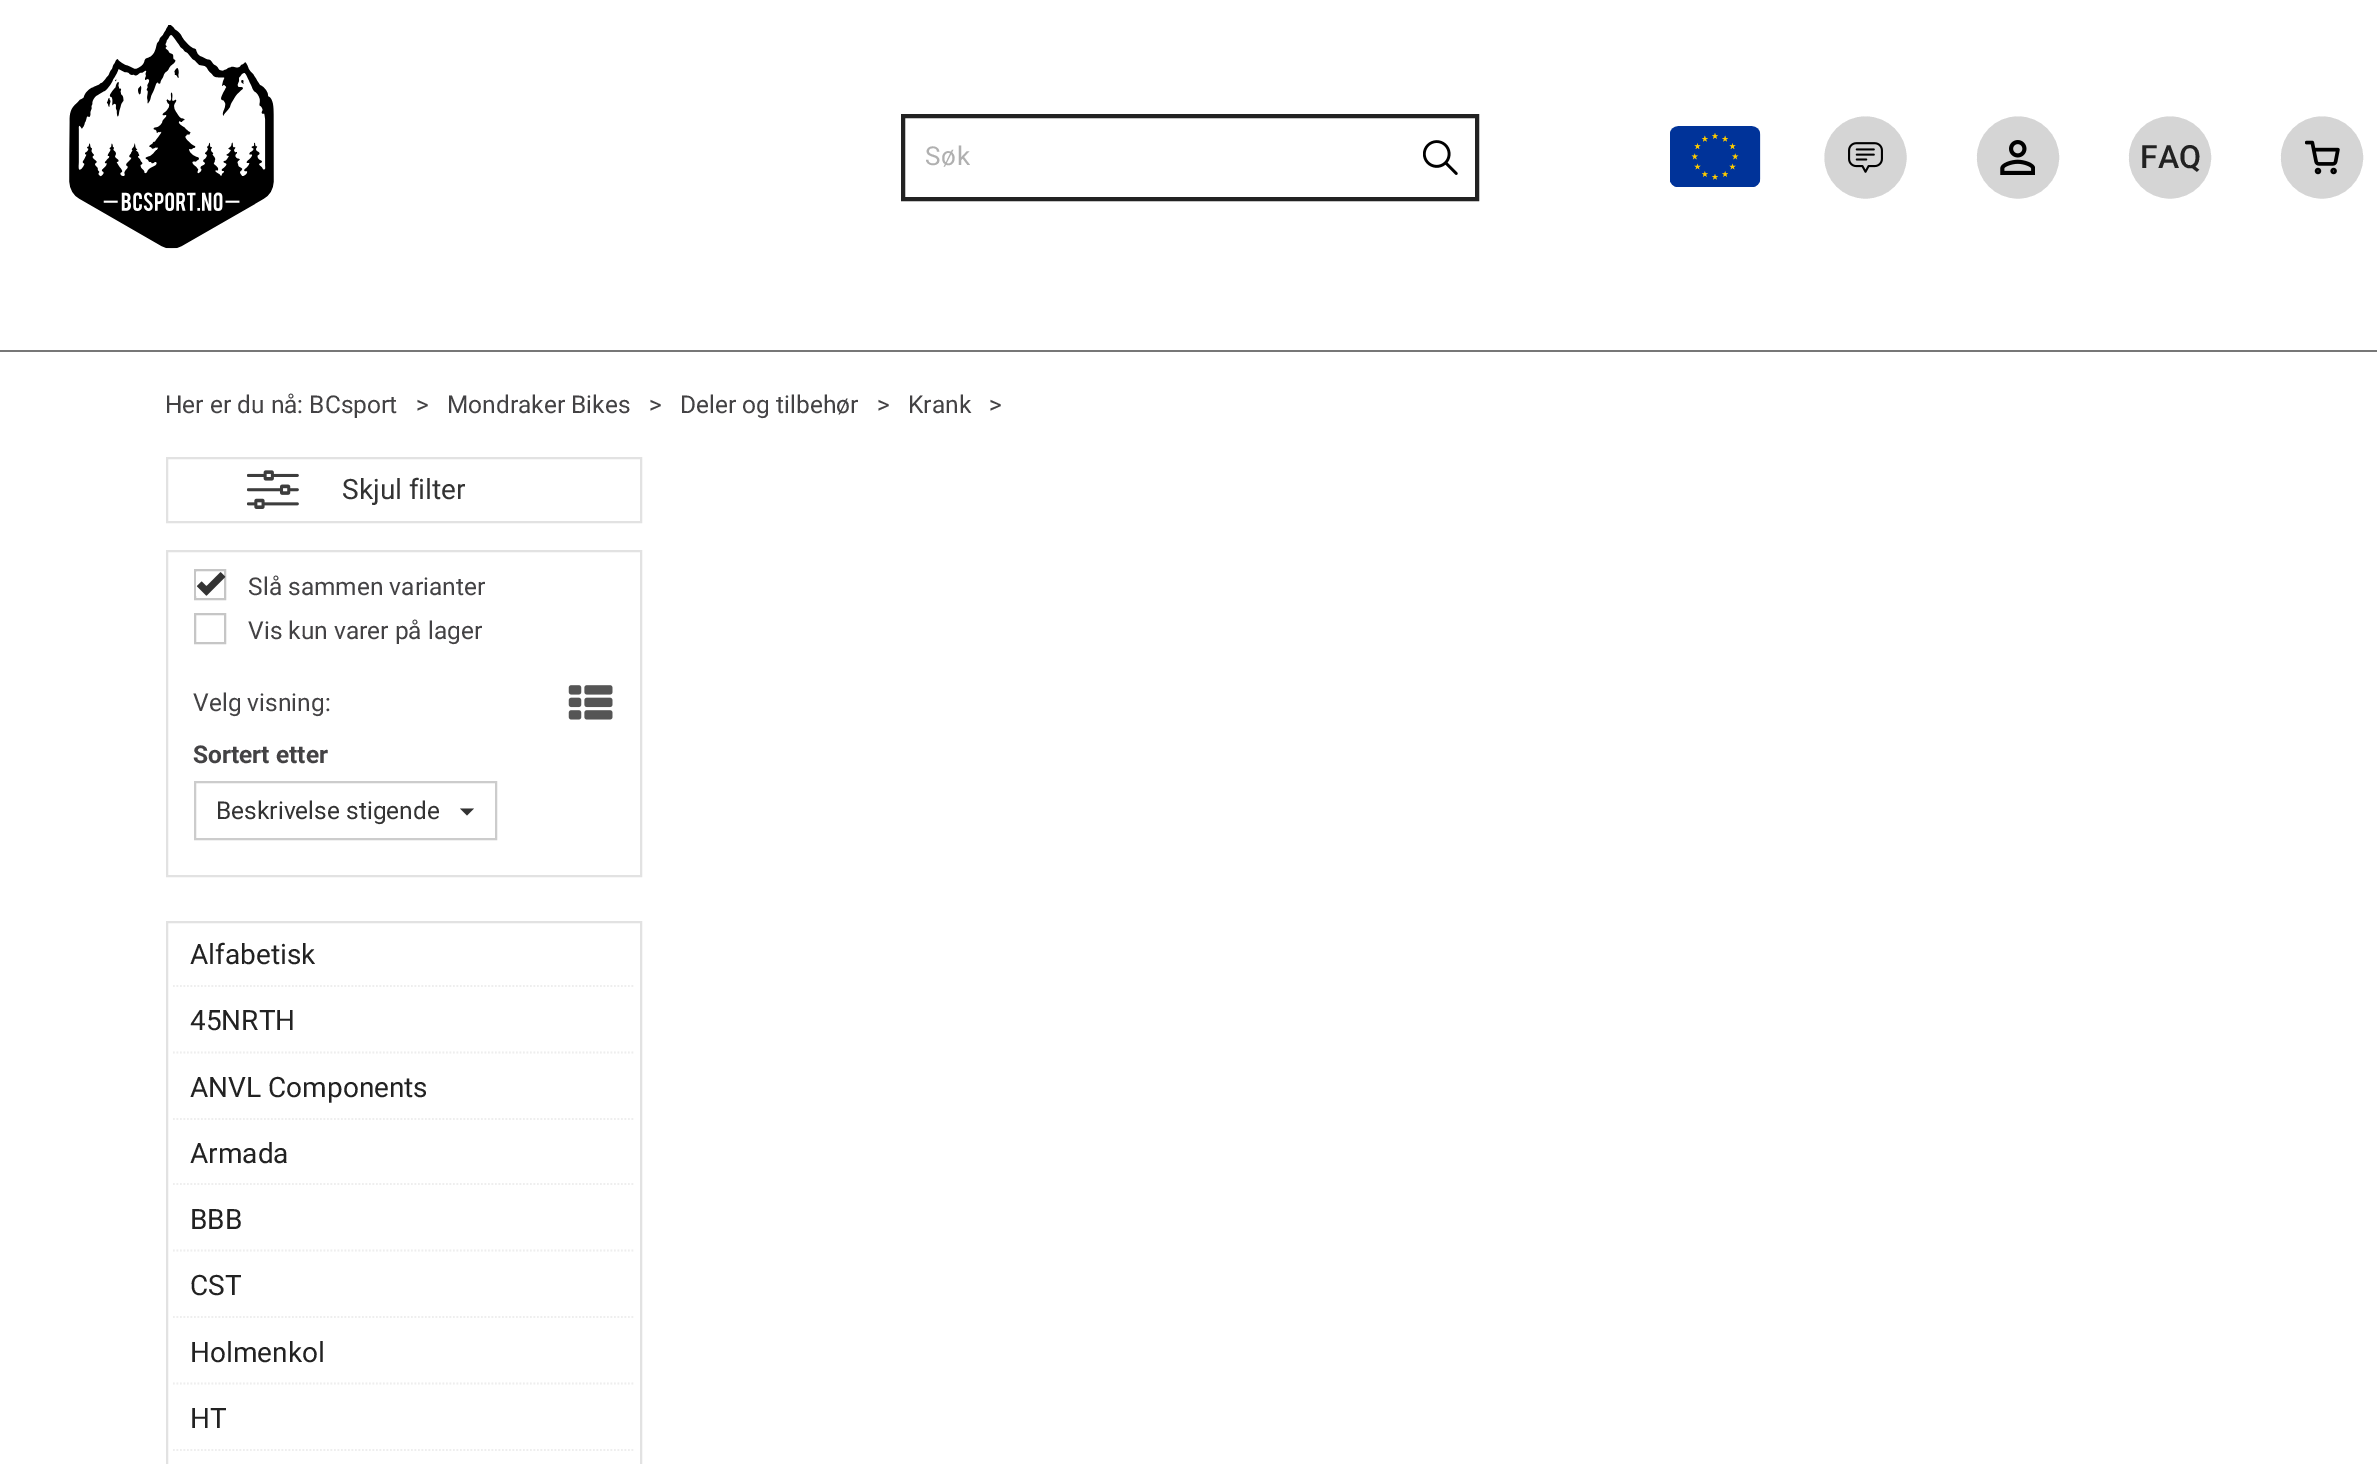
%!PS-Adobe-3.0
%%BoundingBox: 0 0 2377 1464
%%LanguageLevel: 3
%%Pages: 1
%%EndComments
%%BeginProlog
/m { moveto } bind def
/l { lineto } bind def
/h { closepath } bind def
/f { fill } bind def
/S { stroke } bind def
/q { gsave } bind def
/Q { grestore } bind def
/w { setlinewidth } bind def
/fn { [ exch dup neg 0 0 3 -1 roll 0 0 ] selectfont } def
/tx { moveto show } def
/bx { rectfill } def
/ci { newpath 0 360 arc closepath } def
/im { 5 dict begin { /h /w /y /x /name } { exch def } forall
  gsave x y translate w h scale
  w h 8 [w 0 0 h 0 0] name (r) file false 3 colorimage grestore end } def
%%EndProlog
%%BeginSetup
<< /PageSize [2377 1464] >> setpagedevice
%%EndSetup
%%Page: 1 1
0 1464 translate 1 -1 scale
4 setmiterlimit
1 setgray
0 0 2377 1464 bx
(image0.raw) 69 25 205 224 im
0.133 setgray
4 w
903 116 574 83 rectstroke
/Roboto-Regular 26 fn
0.69 setgray
925 165 m 1 0 (Søk) ashow
(image1.raw) 1423 140 35 35 im
(image2.raw) 1670 126 91 61 im
0.835 setgray
1865.5 157.5 40 ci q f Q
2.1 w
S
(image3.raw) 1848 142 35 31 im
2018 157.5 40 ci q f Q
S
(image4.raw) 2000 140 35 35 im
2170 157.5 40 ci q f Q
S
/Roboto-Medium 32 fn
0.133 setgray
(FAQ) 2140 168 tx
0.835 setgray
2322 157.5 40 ci q f Q
S
(image5.raw) 2305 140 35 35 im
0.467 setgray
0 350 2377 2 bx
/Roboto-Regular 24.5 fn
0.263 0.259 0.267 setrgbcolor
(Her er du nå: BCsport) 165 413 tx
(>) 416 413 tx
(Mondraker Bikes) 447 413 tx
(>) 649 413 tx
(Deler og tilbehør) 680 413 tx
(>) 877 413 tx
(Krank) 908 413 tx
(>) 989 413 tx
(image6.raw) 247 470 52 39 im
0.886 setgray
2 w
167 458 474 64 rectstroke
/Roboto-Regular 28 fn
0.2 setgray
(Skjul filter) 342 499 tx
0.886 setgray
167 551 474 325 rectstroke
0.776 setgray
195 570 30 29 rectstroke
(image7.raw) 196 572 30 24 im
/Roboto-Regular 24.5 fn
0.263 0.259 0.267 setrgbcolor
(Slå sammen varianter) 248 595 tx
0.776 setgray
195 614 30 29 rectstroke
0.263 0.259 0.267 setrgbcolor
(Vis kun varer på lager) 248 639 tx
(Velg visning:) 193 711 tx
(image8.raw) 568 685 45 35 im
/Roboto-Bold 24.5 fn
(Sortert etter) 193 763 tx
0.8 setgray
195 782 301 57 rectstroke
/Roboto-Regular 24.5 fn
0.2 setgray
(Beskrivelse stigende) 216 819 tx
460 808.5 m 474 808.5 l 467 815.5 l h f
0.886 setgray
167 922 474 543 rectstroke
0.933 setgray
1.8 w
[1.75 1.75] 0 setdash
173 986 m 635 986 l S
/Roboto-Regular 28 fn
0.133 setgray
(Alfabetisk) 190 964 tx
0.933 setgray
173 1052.5 m 635 1052.5 l S
0.133 setgray
(45NRTH) 190 1030 tx
0.933 setgray
173 1119 m 635 1119 l S
0.133 setgray
(ANVL Components) 190 1097 tx
0.933 setgray
173 1184 m 635 1184 l S
0.133 setgray
(Armada) 190 1163 tx
0.933 setgray
173 1250.5 m 635 1250.5 l S
0.133 setgray
(BBB) 190 1229 tx
0.933 setgray
173 1317 m 635 1317 l S
0.133 setgray
(CST) 190 1295 tx
0.933 setgray
173 1383.5 m 635 1383.5 l S
0.133 setgray
(Holmenkol) 190 1362 tx
0.933 setgray
173 1450 m 635 1450 l S
0.133 setgray
(HT) 190 1428 tx
showpage
%%EOF
